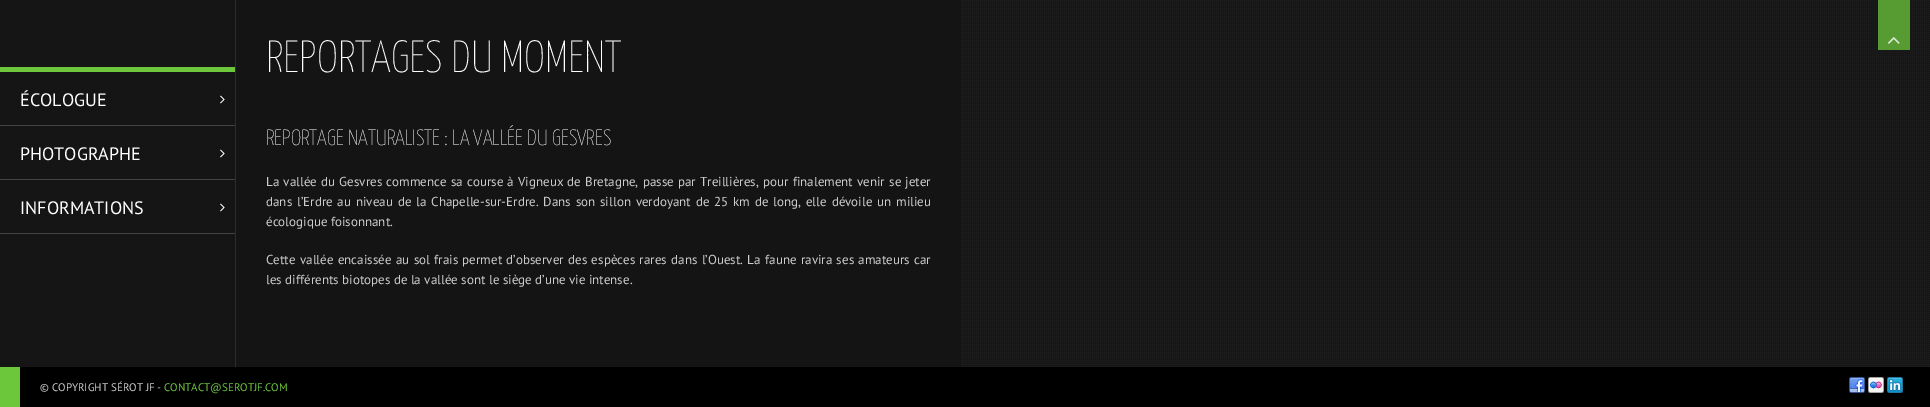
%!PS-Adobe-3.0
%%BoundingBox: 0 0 1930 407
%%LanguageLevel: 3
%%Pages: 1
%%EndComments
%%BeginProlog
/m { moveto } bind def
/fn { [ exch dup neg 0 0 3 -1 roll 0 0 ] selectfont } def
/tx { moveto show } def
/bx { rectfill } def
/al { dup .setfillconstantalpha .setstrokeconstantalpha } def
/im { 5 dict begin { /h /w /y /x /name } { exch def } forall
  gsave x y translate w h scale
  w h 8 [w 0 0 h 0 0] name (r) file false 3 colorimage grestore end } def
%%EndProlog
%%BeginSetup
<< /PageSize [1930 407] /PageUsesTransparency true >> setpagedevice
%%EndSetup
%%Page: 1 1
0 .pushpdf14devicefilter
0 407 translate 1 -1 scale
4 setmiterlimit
0.102 setgray
0 0 1930 407 bx
(image1.raw) 1 1 1929 365 im
0.75 al
0.424 0.78 0.231 setrgbcolor
1878 0 32 50 bx
1 al
(image0.raw) 1888 37 12 7 im
0.9 al
0.078 setgray
0 0 235 367 bx
1 al
0.173 setgray
235 0 1 367 bx
0.424 0.78 0.231 setrgbcolor
0 67 235 5 bx
0.263 setgray
0 125 235 1 bx
/PTSans-Regular 18 fn
1 setgray
(ÉCOLOGUE) 20 106 tx
(image2.raw) 220 95 5 9 im
0.263 setgray
0 179 235 1 bx
1 setgray
(PHOTOGRAPHE) 20 160 tx
(image2.raw) 220 149 5 9 im
0.263 setgray
0 233 235 1 bx
1 setgray
(INFORMATIONS) 20 214 tx
(image2.raw) 220 203 5 9 im
0.95 al
0.078 setgray
236 0 725 367 bx
/YanoneKaffeesatz-ExtraLight 45 fn
1 al
1 setgray
(REPORTAGES DU MOMENT) 266 72 tx
/YanoneKaffeesatz-ExtraLight 22 fn
(REPORTAGE NATURALISTE : LA VALLÉE DU GESVRES) 266 145 tx
/PTSans-Regular 13 fn
0.8 setgray
266 186 m 0.75 0 32 (La vallée du Gesvres commence sa course à Vigneux de Bretagne, passe par Treillières, pour finalement venir se jeter) widthshow
266 206 m 1.4 0 32 (dans l’Erdre au niveau de la Chapelle-sur-Erdre. Dans son sillon verdoyant de 25 km de long, elle dévoile un milieu) widthshow
(écologique foisonnant.) 266 226 tx
266 264 m 0.9 0 32 (Cette vallée encaissée au sol frais permet d’observer des espèces rares dans l’Ouest. La faune ravira ses amateurs car) widthshow
(les différents biotopes de la vallée sont le siège d’une vie intense.) 266 284 tx
0 setgray
20 367 1910 40 bx
0.424 0.78 0.231 setrgbcolor
0 367 20 40 bx
/PTSans-Regular 11 fn
0.8 setgray
(© COPYRIGHT SÉROT JF -) 40 391 tx
0.424 0.78 0.231 setrgbcolor
(CONTACT@SEROTJF.COM) 164 391 tx
(image3.raw) 1849 377 16 16 im
(image4.raw) 1868 377 16 16 im
(image5.raw) 1887 377 16 16 im
.poppdf14devicefilter showpage
%%EOF
